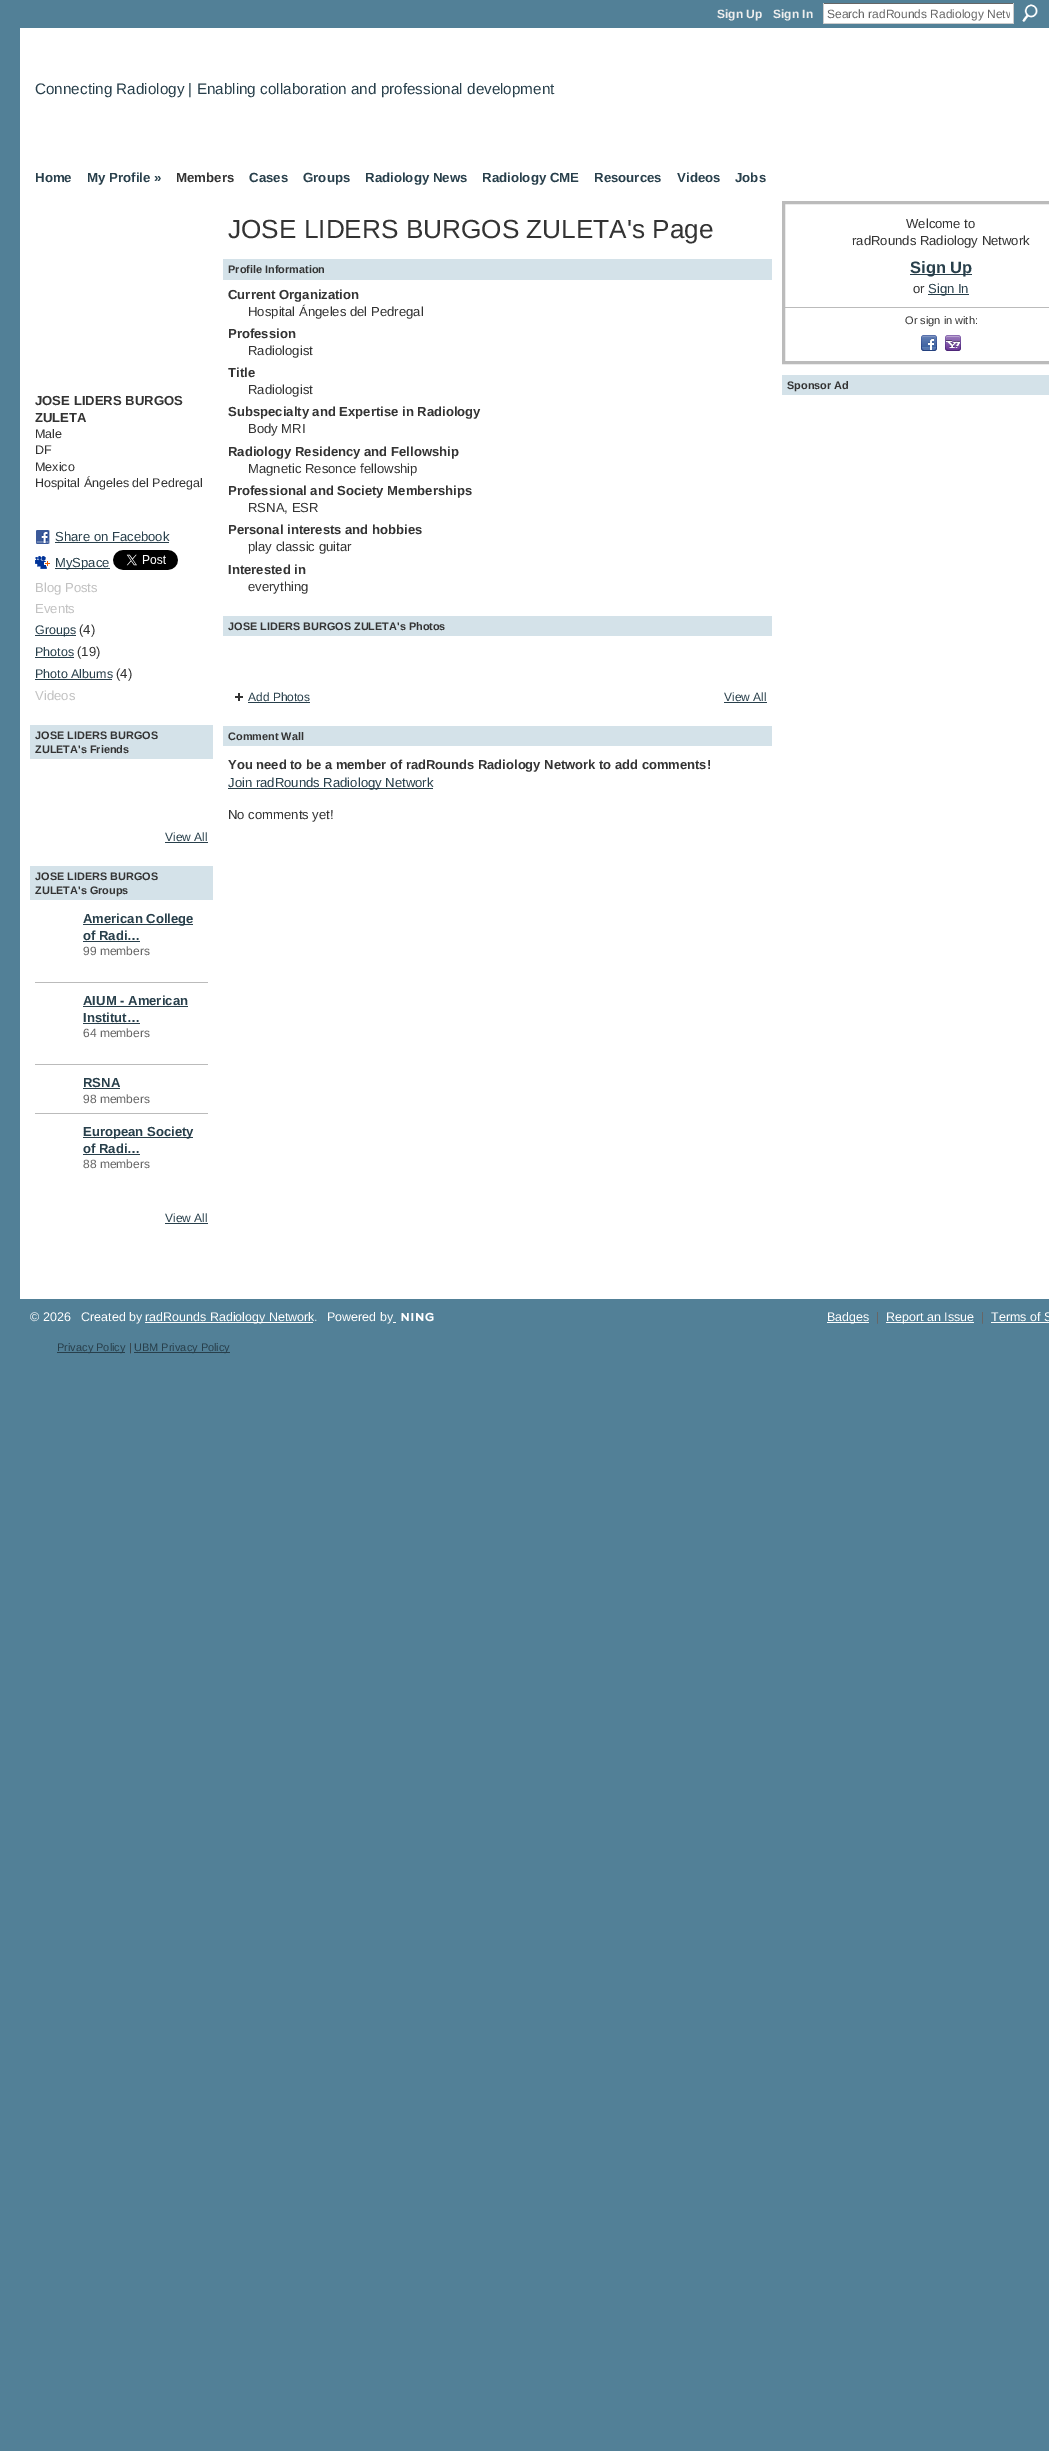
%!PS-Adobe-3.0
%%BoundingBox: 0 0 1049 2451
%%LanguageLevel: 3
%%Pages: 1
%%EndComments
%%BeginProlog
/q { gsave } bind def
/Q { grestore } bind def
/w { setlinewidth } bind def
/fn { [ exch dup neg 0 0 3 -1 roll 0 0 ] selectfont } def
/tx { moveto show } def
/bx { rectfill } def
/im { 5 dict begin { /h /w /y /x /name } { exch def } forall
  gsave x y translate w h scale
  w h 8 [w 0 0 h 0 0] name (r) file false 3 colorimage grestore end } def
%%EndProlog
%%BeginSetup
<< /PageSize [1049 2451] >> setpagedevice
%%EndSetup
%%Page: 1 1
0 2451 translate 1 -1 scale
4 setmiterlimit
0.322 0.502 0.592 setrgbcolor
0 0 1049 2451 bx
/LiberationSans-Bold 12 fn
0.933 setgray
(Sign Up) 717 18 tx
(Sign In) 773 18 tx
1 setgray
824 4 189 19 bx
0.4 setgray
823 3 191 1 bx
0.8 setgray
1013 3 1 21 bx
823 23 191 1 bx
823 3 1 21 bx
q
827 7 183 14 rectclip
/LiberationSans-Regular 12 fn
0.4 setgray
(Search radRounds Radiology Netw) 827 18 tx
Q
(image0.raw) 1022 4 16 18 im
1 setgray
20 28 1029 1271 bx
/LiberationSans-Regular 15.25 fn
0.157 0.247 0.294 setrgbcolor
(Connecting Radiology | Enabling collaboration and professional development) 35 94 tx
/LiberationSans-Bold 13.25 fn
(Home) 35 182 tx
(My Profile ») 87 182 tx
0.2 setgray
(Members) 176 182 tx
0.157 0.247 0.294 setrgbcolor
(Cases) 249 182 tx
(Groups) 303 182 tx
(Radiology News) 365 182 tx
(Radiology CME) 482 182 tx
(Resources) 594 182 tx
(Videos) 677 182 tx
(Jobs) 735 182 tx
/LiberationSans-Bold 13.1 fn
0.2 setgray
(JOSE LIDERS BURGOS) 35 405 tx
(ZULETA) 35 422 tx
/LiberationSans-Regular 12.5 fn
(Male) 35 438 tx
(DF) 35 454 tx
(Mexico) 35 471 tx
(Hospital Ángeles del Pedregal) 35 487 tx
(image1.raw) 36 530 14 14 im
/LiberationSans-Regular 13.1 fn
0.157 0.247 0.294 setrgbcolor
(Share on Facebook) 55 541 tx
55 542 114 1 bx
(image2.raw) 35 556 15 13 im
55 568 55 1 bx
(MySpace) 55 567 tx
(image3.raw) 113 550 65 20 im
0.761 setgray
(Blog Posts) 35 592 tx
(Events) 35 613 tx
0.157 0.247 0.294 setrgbcolor
35 635 41 1 bx
/LiberationSans-Regular 12.5 fn
(Groups) 35 634 tx
/LiberationSans-Regular 13.1 fn
0.2 setgray
(\(4\)) 79 634 tx
/LiberationSans-Regular 12.5 fn
0.157 0.247 0.294 setrgbcolor
(Photos) 35 656 tx
35 657 39 1 bx
/LiberationSans-Regular 13.1 fn
0.2 setgray
(\(19\)) 77 656 tx
/LiberationSans-Regular 12.5 fn
0.157 0.247 0.294 setrgbcolor
(Photo Albums) 35 678 tx
35 679 77 1 bx
/LiberationSans-Regular 13.1 fn
0.2 setgray
(\(4\)) 116 678 tx
0.761 setgray
(Videos) 35 700 tx
0.831 0.886 0.914 setrgbcolor
30 725 183 34 bx
/LiberationSans-Bold 10.9 fn
0.2 setgray
(JOSE LIDERS BURGOS) 35 739 tx
(ZULETA's Friends) 35 753 tx
/LiberationSans-Regular 12 fn
0.157 0.247 0.294 setrgbcolor
(View All) 165 841 tx
165 842 43 1 bx
0.831 0.886 0.914 setrgbcolor
30 866 183 34 bx
/LiberationSans-Bold 10.9 fn
0.2 setgray
(JOSE LIDERS BURGOS) 35 880 tx
(ZULETA's Groups) 35 894 tx
0.733 setgray
35 982 173 1 bx
0.157 0.247 0.294 setrgbcolor
83 924 110 1 bx
/LiberationSans-Bold 13.1 fn
(American College) 83 923 tx
(of Radi…) 83 940 tx
83 941 57 1 bx
/LiberationSans-Regular 12 fn
0.4 setgray
(99 members) 83 955 tx
0.733 setgray
35 1064 173 1 bx
/LiberationSans-Bold 13.1 fn
0.157 0.247 0.294 setrgbcolor
(AIUM - American) 83 1005 tx
83 1006 105 1 bx
(Institut…) 83 1022 tx
83 1023 57 1 bx
/LiberationSans-Regular 12 fn
0.4 setgray
(64 members) 83 1037 tx
0.733 setgray
35 1113 173 1 bx
/LiberationSans-Bold 13.1 fn
0.157 0.247 0.294 setrgbcolor
(RSNA) 83 1087 tx
83 1088 37 1 bx
/LiberationSans-Regular 12 fn
0.4 setgray
(98 members) 83 1103 tx
0.157 0.247 0.294 setrgbcolor
83 1137 110 1 bx
/LiberationSans-Bold 13.1 fn
(European Society) 83 1136 tx
(of Radi…) 83 1153 tx
83 1154 57 1 bx
/LiberationSans-Regular 12 fn
0.4 setgray
(88 members) 83 1168 tx
0.157 0.247 0.294 setrgbcolor
(View All) 165 1222 tx
165 1223 43 1 bx
/LiberationSans-Regular 26.2 fn
0.2 setgray
(JOSE LIDERS BURGOS ZULETA's Page) 228 238 tx
0.831 0.886 0.914 setrgbcolor
223 259 549 21 bx
/LiberationSans-Bold 10.9 fn
0.2 setgray
(Profile Information) 228 273 tx
/LiberationSans-Bold 13.1 fn
(Current Organization) 228 299 tx
/LiberationSans-Regular 13.1 fn
(Hospital Ángeles del Pedregal) 248 316 tx
/LiberationSans-Bold 13.1 fn
(Profession) 228 338 tx
/LiberationSans-Regular 13.1 fn
(Radiologist) 248 355 tx
/LiberationSans-Bold 13.1 fn
(Title) 228 377 tx
/LiberationSans-Regular 13.1 fn
(Radiologist) 248 394 tx
/LiberationSans-Bold 13.1 fn
(Subspecialty and Expertise in Radiology) 228 416 tx
/LiberationSans-Regular 13.1 fn
(Body MRI) 248 433 tx
/LiberationSans-Bold 13.1 fn
(Radiology Residency and Fellowship) 228 456 tx
/LiberationSans-Regular 13.1 fn
(Magnetic Resonce fellowship) 248 473 tx
/LiberationSans-Bold 13.1 fn
(Professional and Society Memberships) 228 495 tx
/LiberationSans-Regular 13.1 fn
(RSNA, ESR) 248 512 tx
/LiberationSans-Bold 13.1 fn
(Personal interests and hobbies) 228 534 tx
/LiberationSans-Regular 13.1 fn
(play classic guitar) 248 551 tx
/LiberationSans-Bold 13.1 fn
(Interested in) 228 574 tx
/LiberationSans-Regular 13.1 fn
(everything) 248 591 tx
0.831 0.886 0.914 setrgbcolor
223 616 549 20 bx
/LiberationSans-Bold 10.9 fn
0.2 setgray
(JOSE LIDERS BURGOS ZULETA's Photos) 228 630 tx
(image4.raw) 235 693 8 8 im
/LiberationSans-Regular 12 fn
0.157 0.247 0.294 setrgbcolor
(Add Photos) 248 701 tx
248 702 62 1 bx
(View All) 724 701 tx
724 702 43 1 bx
0.831 0.886 0.914 setrgbcolor
223 726 549 20 bx
/LiberationSans-Bold 10.9 fn
0.2 setgray
(Comment Wall) 228 740 tx
/LiberationSans-Bold 13 fn
(You need to be a member of radRounds Radiology Network to add comments!) 228 769 tx
0.157 0.247 0.294 setrgbcolor
228 788 205 1 bx
/LiberationSans-Regular 13.1 fn
(Join radRounds Radiology Network) 228 787 tx
0.2 setgray
(No comments yet!) 228 819 tx
0.733 setgray
3 w
783.5 202.5 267 160 rectstroke
0.2 setgray
(Welcome to) 906 228 tx
(radRounds Radiology Network) 852 245 tx
0.157 0.247 0.294 setrgbcolor
910 274 62 1 bx
/LiberationSans-Bold 16.5 fn
(Sign Up) 910 273 tx
/LiberationSans-Regular 13.1 fn
0.2 setgray
(or) 913 293 tx
0.157 0.247 0.294 setrgbcolor
928 294 41 1 bx
(Sign In) 928 293 tx
0.733 setgray
785 307 264 1 bx
/LiberationSans-Regular 11 fn
0.2 setgray
(Or sign in with:) 905 324 tx
(image5.raw) 921 335 16 16 im
(image6.raw) 945 335 16 16 im
0.831 0.886 0.914 setrgbcolor
782 375 267 20 bx
/LiberationSans-Bold 10.9 fn
0.2 setgray
(Sponsor Ad) 787 389 tx
/LiberationSans-Regular 12.5 fn
1 setgray
(© 2026) 30 1321 tx
(Created by) 81 1321 tx
145 1322 168 1 bx
(radRounds Radiology Network.) 145 1321 tx
(Powered by) 327 1321 tx
(image7.raw) 401 1312 33 10 im
393 1322 3 1 bx
827 1322 42 1 bx
(Badges) 827 1321 tx
0.4 setgray
(|) 876 1321 tx
1 setgray
886 1322 88 1 bx
(Report an Issue) 886 1321 tx
0.4 setgray
(|) 981 1321 tx
1 setgray
(Terms of S) 991 1321 tx
991 1322 58 1 bx
0.157 0.247 0.294 setrgbcolor
57 1352 68 1 bx
/LiberationSans-Regular 11 fn
(Privacy Policy) 57 1351 tx
0.2 setgray
(|) 129 1351 tx
0.157 0.247 0.294 setrgbcolor
134 1352 96 1 bx
(UBM Privacy Policy) 134 1351 tx
showpage
%%EOF
